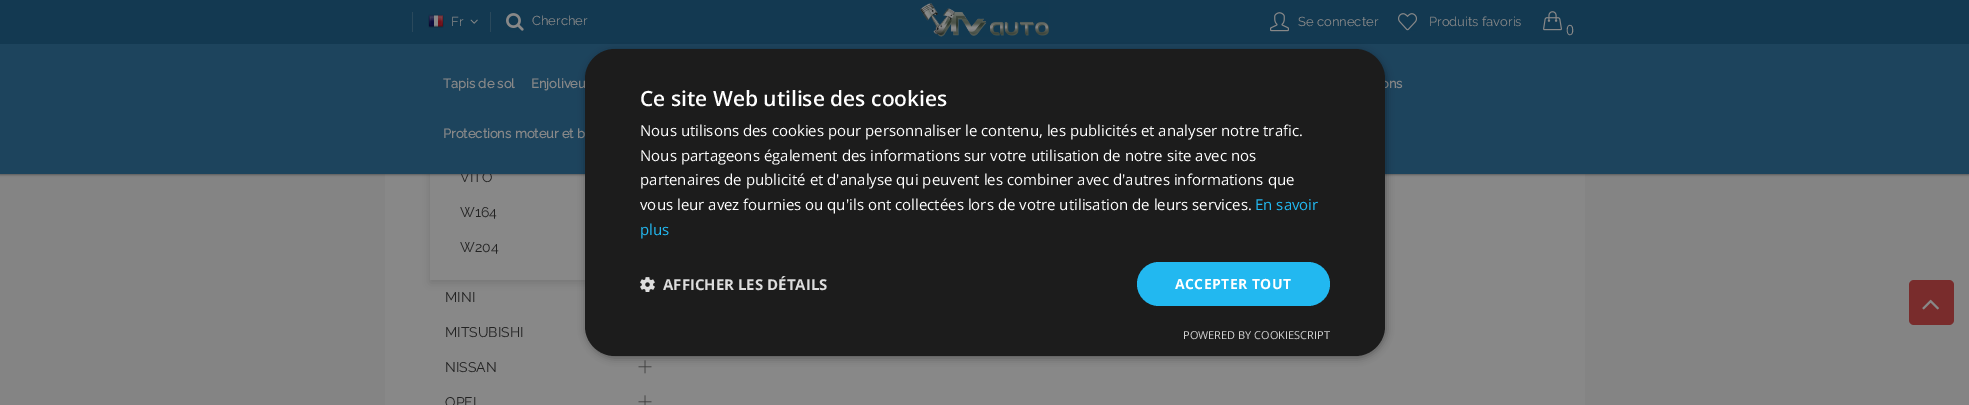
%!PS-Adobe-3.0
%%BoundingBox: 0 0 1969 405
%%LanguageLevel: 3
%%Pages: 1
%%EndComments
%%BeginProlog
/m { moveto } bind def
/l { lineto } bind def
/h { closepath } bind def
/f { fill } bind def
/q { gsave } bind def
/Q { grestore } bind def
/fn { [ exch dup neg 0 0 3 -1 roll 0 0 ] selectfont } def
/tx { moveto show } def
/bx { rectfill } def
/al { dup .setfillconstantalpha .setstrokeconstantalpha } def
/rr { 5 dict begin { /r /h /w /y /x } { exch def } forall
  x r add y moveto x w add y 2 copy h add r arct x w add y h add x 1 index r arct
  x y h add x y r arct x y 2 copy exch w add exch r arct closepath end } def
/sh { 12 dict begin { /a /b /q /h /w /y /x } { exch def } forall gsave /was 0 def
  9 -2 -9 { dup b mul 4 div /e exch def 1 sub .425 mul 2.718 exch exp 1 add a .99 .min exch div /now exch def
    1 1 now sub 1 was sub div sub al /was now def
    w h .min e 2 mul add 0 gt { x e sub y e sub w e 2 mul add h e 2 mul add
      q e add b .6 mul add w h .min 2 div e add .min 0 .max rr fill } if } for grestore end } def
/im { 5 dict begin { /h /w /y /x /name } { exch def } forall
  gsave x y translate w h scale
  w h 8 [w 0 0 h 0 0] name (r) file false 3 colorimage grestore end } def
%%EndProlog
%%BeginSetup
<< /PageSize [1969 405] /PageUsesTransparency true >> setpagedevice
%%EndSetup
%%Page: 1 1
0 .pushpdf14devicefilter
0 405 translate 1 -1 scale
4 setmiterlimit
0.518 setgray
0 0 1969 405 bx
0.533 setgray
385 174 1200 231 bx
0.235 setgray
0 0 1969 174 0 1.5 1 sh
q
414 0 m 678 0 l 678 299 l 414 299 l h 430 -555 m 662 -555 l 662 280 l 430 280 l h eoclip newpath
0.035 setgray
430 -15 232 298 0 5 0.15 sh
Q
/Raleway-Thin 14 fn
0.133 setgray
(VITO) 460 182 tx
0.114 0.267 0.365 setrgbcolor
0 44 1969 130 bx
0.075 0.224 0.318 setrgbcolor
0 0 1969 44 bx
0.165 0.286 0.361 setrgbcolor
412 12 1 20 bx
(image0.raw) 428 14 16 14 im
/Raleway-Thin 13 fn
0.533 setgray
(Fr) 451 26 tx
(image1.raw) 470 19 8 5 im
0.165 0.286 0.361 setrgbcolor
490 12 1 20 bx
(image2.raw) 506 13 18 18 im
0.533 setgray
(Chercher) 532 25 tx
(image3.raw) 920 3 129 34 im
(image4.raw) 1270 12 19 20 im
(Se connecter) 1298 26 tx
(image5.raw) 1398 13 19 18 im
(Produits favoris) 1429 26 tx
(image6.raw) 1543 11 19 20 im
/OpenSans-Regular 14 fn
(0) 1566 35 tx
/Raleway-Bold 13 fn
(Tapis de sol) 443 88 tx
(Enjoliveu) 531 88 tx
(ons) 1381 88 tx
(Protections moteur et b) 443 138 tx
/Raleway-Thin 14 fn
0.133 setgray
(W164) 460 217 tx
(W204) 460 252 tx
(MINI) 445 302 tx
(MITSUBISHI) 445 337 tx
(NISSAN) 445 372 tx
(image7.raw) 638 360 14 14 im
(OPEL) 445 407 tx
(image8.raw) 638 395 14 10 im
0.475 0.173 0.173 setrgbcolor
1909 280 45 45 5 rr f
(image9.raw) 1922 299 17 11 im
0 setgray
586 51 800 307 30 4 0.35 sh
0.11 setgray
585 49 800 307 30 rr f
/OpenSans-SemiBold 21 fn
1 setgray
(Ce site Web utilise des cookies) 640 106 tx
/OpenSans-Regular 15 fn
(Nous utilisons des cookies pour personnaliser le contenu, les publicités et analyser notre trafic.) 640 136 tx
(Nous partageons également des informations sur votre utilisation de notre site avec nos) 640 161 tx
(partenaires de publicité et d'analyse qui peuvent les combiner avec d'autres informations que) 640 185 tx
(vous leur avez fournies ou qu'ils ont collectées lors de votre utilisation de leurs services.) 640 210 tx
0.133 0.722 0.941 setrgbcolor
(En savoir) 1255 210 tx
(plus) 640 235 tx
(image10.raw) 640 277 15 15 im
/OpenSans-Bold 15 fn
0.867 setgray
(AFFICHER LES DÉTAILS) 663 290 tx
0.133 0.722 0.941 setrgbcolor
1137 262 193 44 22 rr f
/OpenSans-Bold 14 fn
1 setgray
1175 289 m 0.4 0 (ACCEPTER TOUT) ashow
/OpenSans-Regular 11 fn
0.824 setgray
(POWERED BY COOKIESCRIPT) 1183 339 tx
.poppdf14devicefilter showpage
%%EOF
